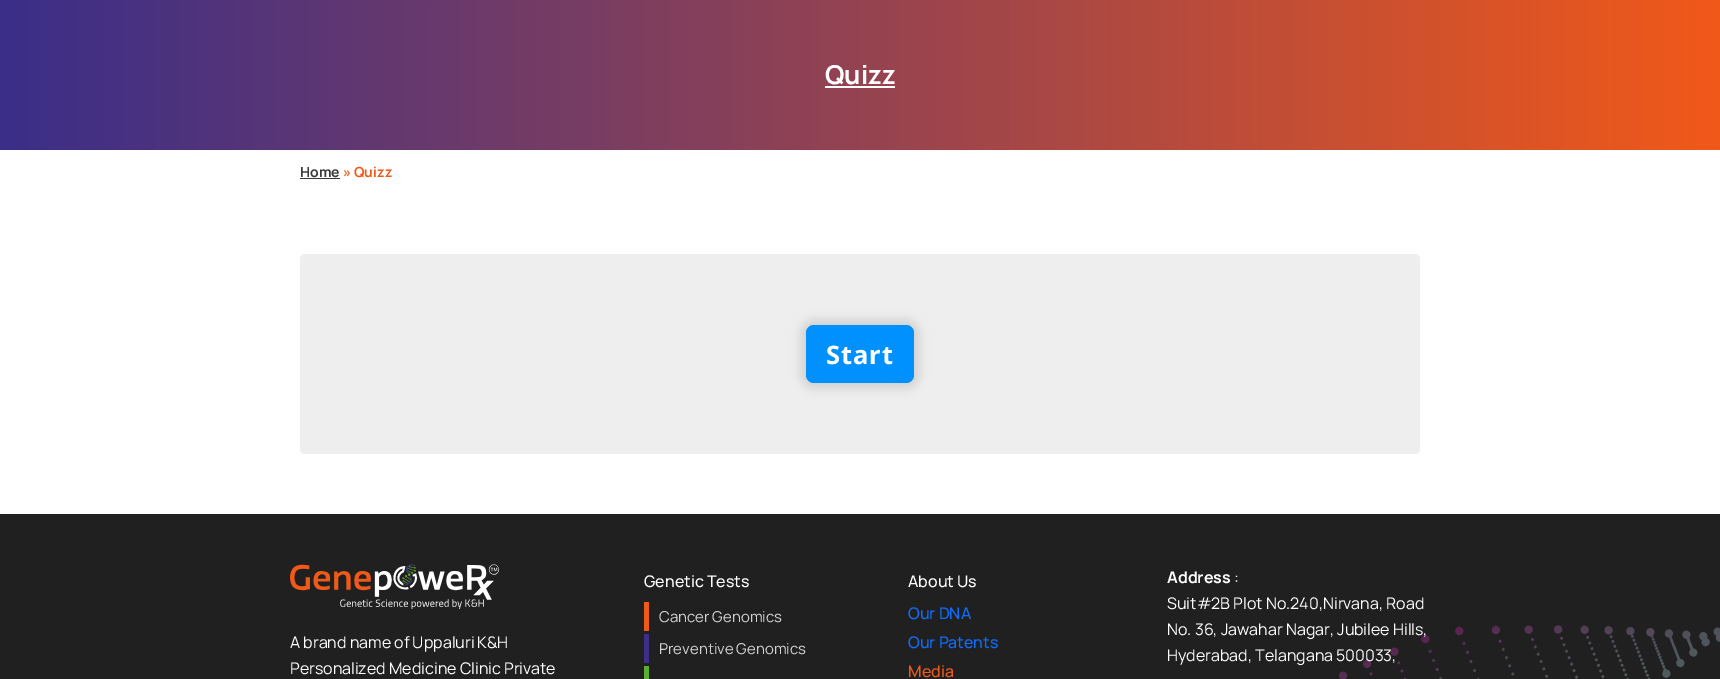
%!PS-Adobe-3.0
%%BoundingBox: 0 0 1720 679
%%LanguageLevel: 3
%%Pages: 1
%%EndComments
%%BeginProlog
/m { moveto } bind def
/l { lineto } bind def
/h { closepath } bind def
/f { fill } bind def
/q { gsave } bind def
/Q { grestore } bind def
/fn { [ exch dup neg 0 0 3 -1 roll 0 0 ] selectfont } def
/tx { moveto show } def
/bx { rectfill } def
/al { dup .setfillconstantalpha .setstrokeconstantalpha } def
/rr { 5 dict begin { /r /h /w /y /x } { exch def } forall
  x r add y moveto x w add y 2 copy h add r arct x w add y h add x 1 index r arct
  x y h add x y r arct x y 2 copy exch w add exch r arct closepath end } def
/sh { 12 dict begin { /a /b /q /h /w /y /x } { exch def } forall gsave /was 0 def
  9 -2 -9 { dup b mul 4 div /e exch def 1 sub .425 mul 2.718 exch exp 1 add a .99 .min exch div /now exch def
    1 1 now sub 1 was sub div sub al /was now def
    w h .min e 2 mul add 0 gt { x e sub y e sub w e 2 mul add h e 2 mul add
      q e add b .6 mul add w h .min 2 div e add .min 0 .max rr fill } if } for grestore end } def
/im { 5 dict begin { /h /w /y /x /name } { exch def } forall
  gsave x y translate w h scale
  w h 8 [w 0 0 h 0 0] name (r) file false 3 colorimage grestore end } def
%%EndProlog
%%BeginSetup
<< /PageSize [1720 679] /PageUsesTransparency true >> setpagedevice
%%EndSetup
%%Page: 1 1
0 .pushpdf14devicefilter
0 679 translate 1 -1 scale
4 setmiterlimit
1 setgray
0 0 1720 679 bx
q 0 0 m 1720 0 l 1720 150 l 0 150 l h clip newpath
<< /ShadingType 2 /ColorSpace /DeviceRGB /Coords [1720 75 0 75] /Extend [true true] /Function << /FunctionType 2 /Domain [0 1] /C0 [0.945 0.349 0.098] /C1 [0.227 0.18 0.537] /N 1 >> >> shfill Q
/Manrope-Bold 26 fn
(Quizz) 825 84 tx
825 86 70 2 bx
/Manrope-Bold 14 fn
0.227 setgray
(Home) 300 177 tx
300 178 40 1 bx
0.945 0.349 0.098 setrgbcolor
(» Quizz) 343 177 tx
0.933 setgray
300 254 1120 200 5 rr f
0 setgray
801 320 118 68 13 5 0.12 sh
0 0.569 1 setrgbcolor
806 325 108 58 8 rr f
/NotoSans-Bold 25.5 fn
1 setgray
826 364 m 1 0 (Start) ashow
0.125 setgray
0 514 1720 165 bx
(image0.raw) 290 564 209 45 im
/Manrope-Regular 16 fn
1 setgray
(A brand name of Uppaluri K&H) 290 648 tx
(Personalized Medicine Clinic Private) 290 674 tx
/Manrope-Medium 16 fn
(Genetic Tests) 644 587 tx
0.941 0.349 0.094 setrgbcolor
644 602 5 29 bx
/Manrope-Regular 15 fn
0.824 setgray
(Cancer Genomics) 659 622 tx
0.231 0.184 0.537 setrgbcolor
644 634 5 29 bx
0.824 setgray
(Preventive Genomics) 659 654 tx
0.353 0.686 0.188 setrgbcolor
644 666 5 13 bx
/Manrope-Medium 16 fn
1 setgray
(About Us) 908 587 tx
0.051 0.431 0.992 setrgbcolor
(Our DNA) 908 619 tx
(Our Patents) 908 648 tx
0.945 0.349 0.098 setrgbcolor
(Media) 908 677 tx
/Manrope-Bold 16 fn
1 setgray
(Address) 1167 583 tx
/Manrope-Regular 16 fn
(:) 1234 583 tx
(Suit#2B Plot No.240,Nirvana, Road) 1167 609 tx
(image1.raw) 1339 625 381 54 im
(No. 36, Jawahar Nagar, Jubilee Hills,) 1167 635 tx
(Hyderabad, Telangana 500033,) 1167 661 tx
.poppdf14devicefilter showpage
%%EOF
